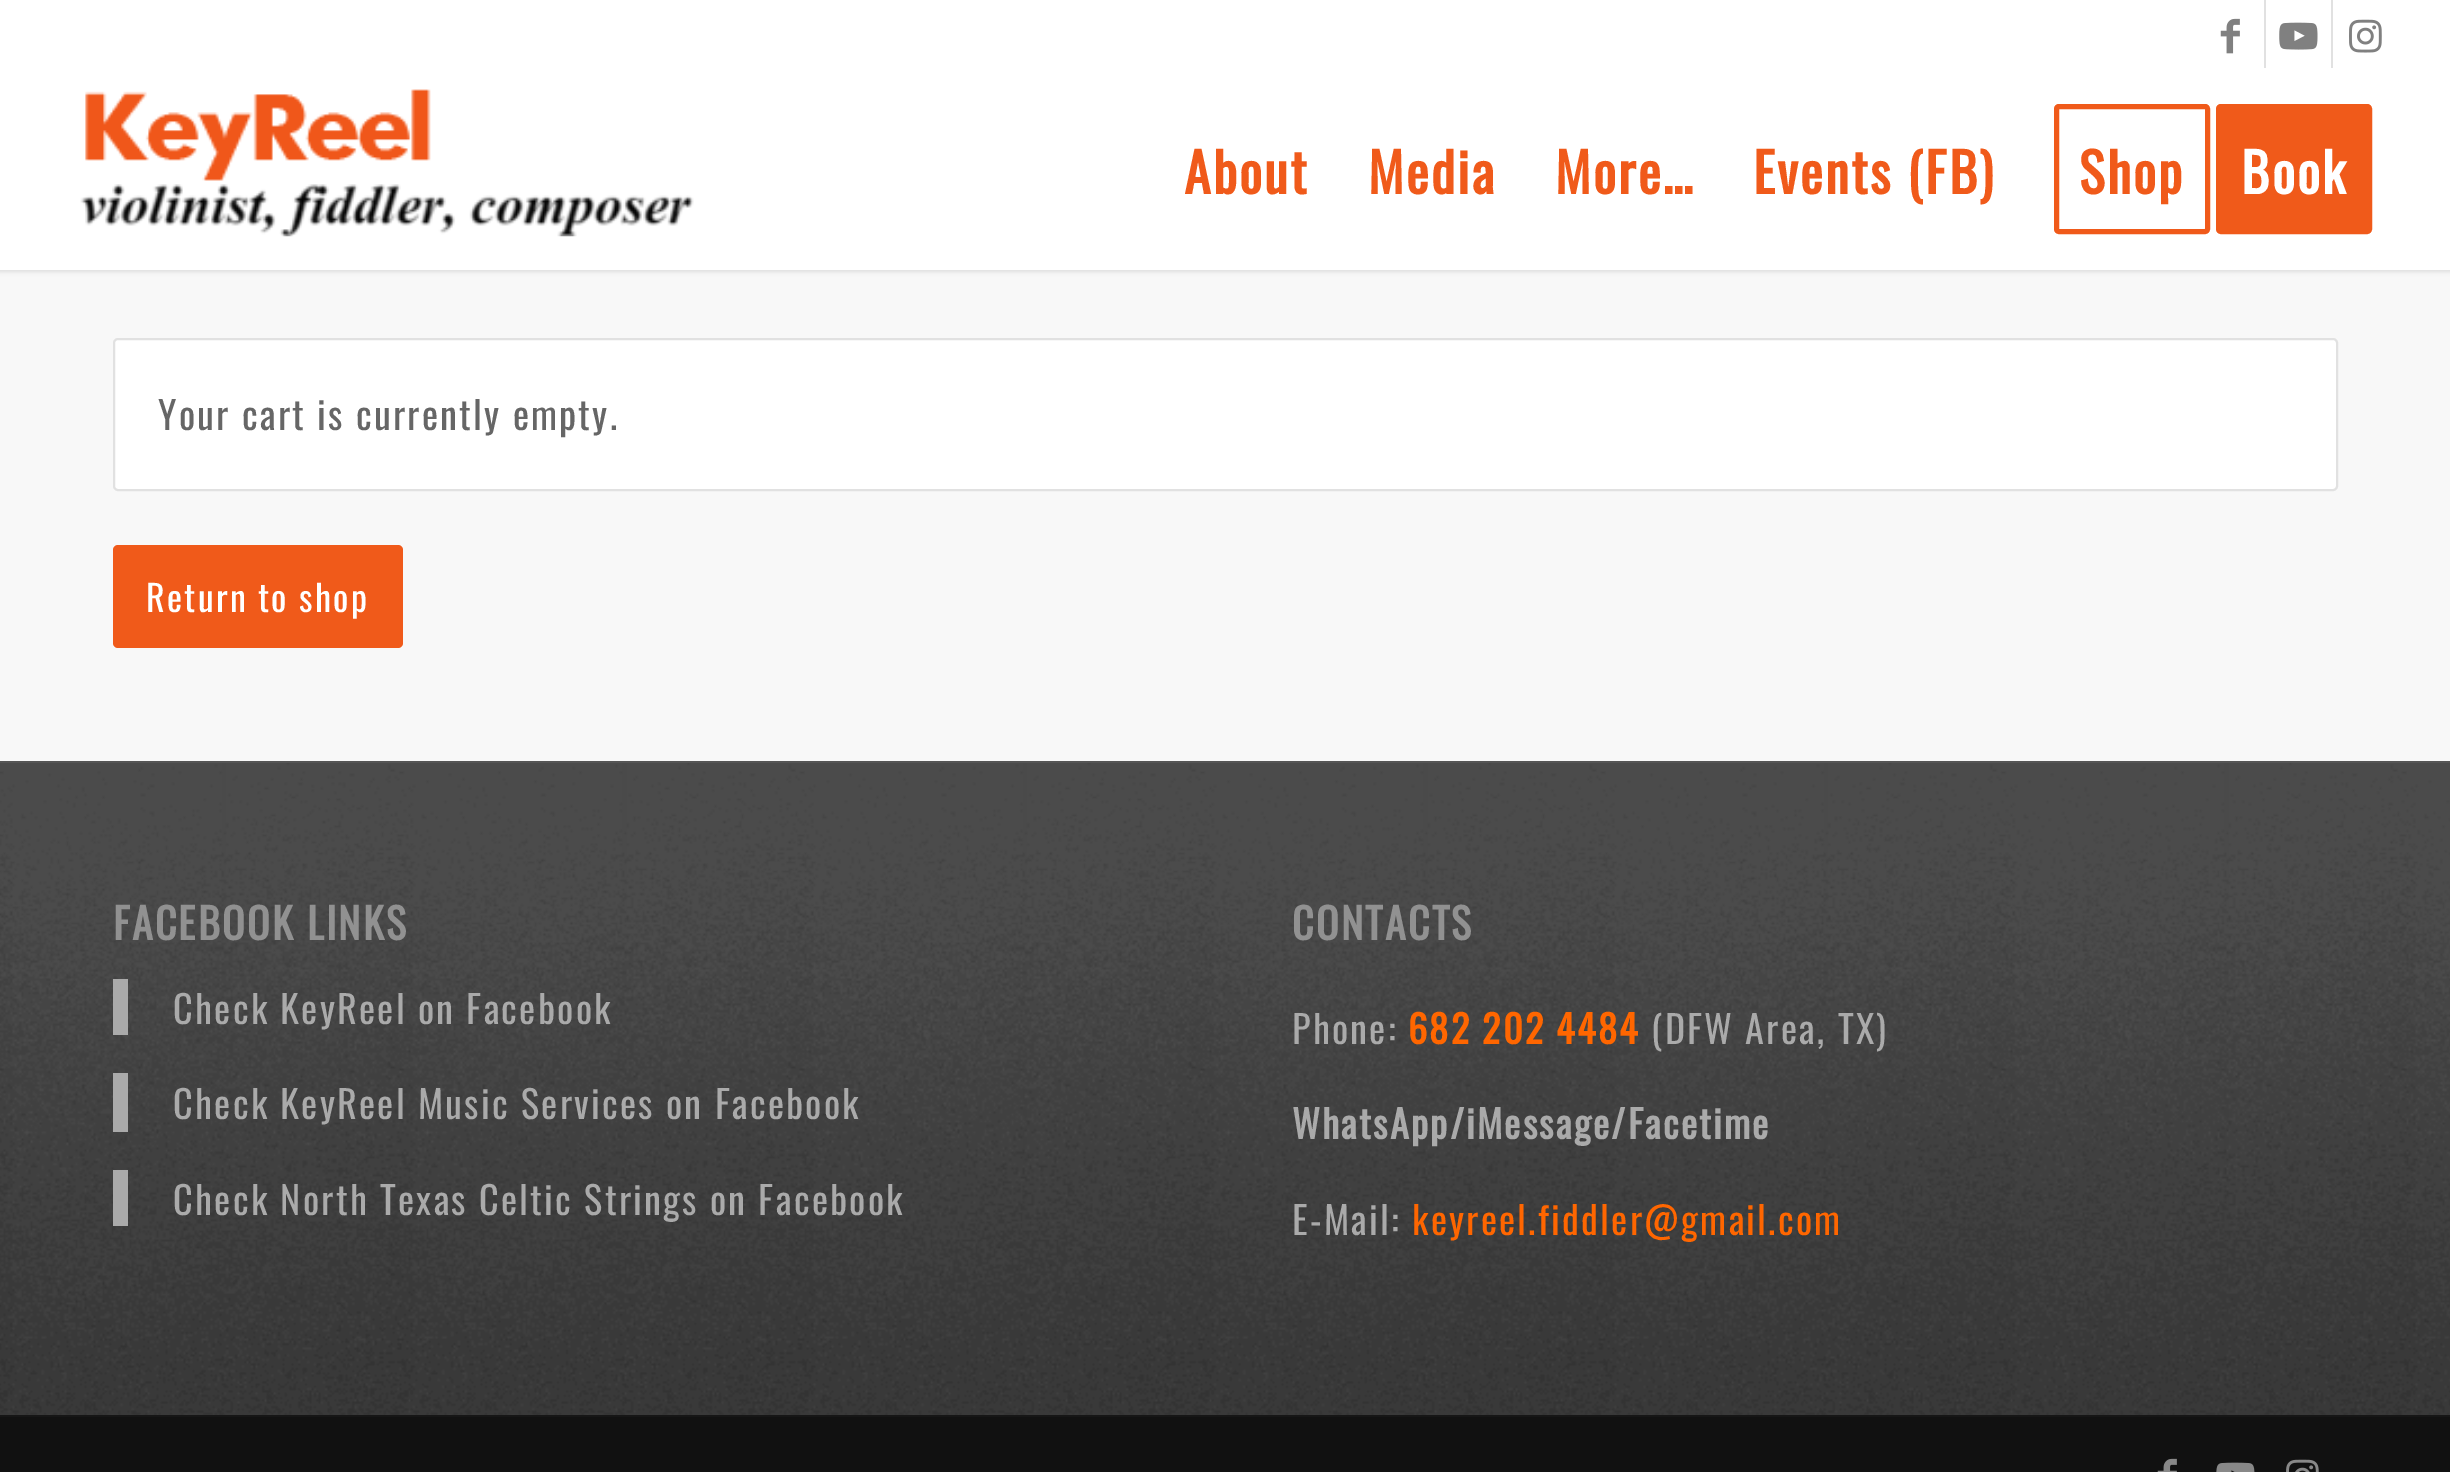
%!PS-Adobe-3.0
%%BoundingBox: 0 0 2450 1472
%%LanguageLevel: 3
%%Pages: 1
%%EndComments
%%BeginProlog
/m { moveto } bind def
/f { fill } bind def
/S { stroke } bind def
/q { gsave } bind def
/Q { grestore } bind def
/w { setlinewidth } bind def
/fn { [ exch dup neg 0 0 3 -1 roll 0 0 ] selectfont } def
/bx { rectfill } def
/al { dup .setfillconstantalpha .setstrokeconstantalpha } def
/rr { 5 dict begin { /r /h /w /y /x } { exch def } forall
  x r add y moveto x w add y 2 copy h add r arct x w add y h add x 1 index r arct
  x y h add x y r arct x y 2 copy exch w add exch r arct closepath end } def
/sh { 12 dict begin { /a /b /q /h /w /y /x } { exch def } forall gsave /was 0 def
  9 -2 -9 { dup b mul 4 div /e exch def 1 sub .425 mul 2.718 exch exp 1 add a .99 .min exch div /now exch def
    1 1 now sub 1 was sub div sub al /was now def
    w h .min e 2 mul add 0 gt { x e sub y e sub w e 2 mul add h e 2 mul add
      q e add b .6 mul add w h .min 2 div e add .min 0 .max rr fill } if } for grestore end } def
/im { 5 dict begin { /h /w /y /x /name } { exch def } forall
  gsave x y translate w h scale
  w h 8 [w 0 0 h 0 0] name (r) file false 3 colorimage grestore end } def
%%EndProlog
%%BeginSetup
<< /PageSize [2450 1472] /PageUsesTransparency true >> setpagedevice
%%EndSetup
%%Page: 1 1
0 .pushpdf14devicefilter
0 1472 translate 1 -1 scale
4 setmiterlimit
0.973 setgray
0 0 2450 1472 bx
0 setgray
-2 -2 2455 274 0 2 0.1 sh
1 setgray
0 0 2450 270 bx
0.882 setgray
2264 0 2 68 bx
(image0.raw) 2220 18 20 36 im
2331 0 2 68 bx
(image1.raw) 2279 22 39 28 im
(image2.raw) 2349 19 33 34 im
(image3.raw) 80 89 614 148 im
/Oswald-Bold 54 fn
0.941 0.353 0.102 setrgbcolor
1184 194 m 2.25 0 (About) ashow
1368 194 m 2.25 0 (Media) ashow
1555 194 m 2.25 0 (More…) ashow
1753 194 m 2.25 0 (Events \(FB\)) ashow
5 w
2056.5 106.5 151 125 2.5 rr S
2079 194 m 2.25 0 (Shop) ashow
2218.5 106.5 151 125 2.5 rr q f Q
S
1 setgray
2241 194 m 2.25 0 (Book) ashow
114 339 2223 151 4 rr q f Q
0.882 setgray
2 w
S
/Oswald-Regular 38.25 fn
0.4 setgray
158 430 m 2.25 0 (Your cart is currently empty.) ashow
0.941 0.353 0.102 setrgbcolor
113 545 290 103 5 rr f
/Oswald-Regular 36 fn
1 setgray
146 612 m 2.25 0 (Return to shop) ashow
0.2 setgray
0 763 2450 652 bx
(image4.raw) 0 763 2450 652 im
0.333 setgray
0 761 2450 2 bx
/Oswald-Bold 42 fn
0.569 setgray
113 940 m 2.25 0 (FACEBOOK LINKS) ashow
0.667 setgray
113 979 15 56 bx
/Oswald-Regular 38.25 fn
173 1024 m 2.25 0 (Check KeyReel on Facebook) ashow
113 1073 15 59 bx
173 1119 m 2.25 0 (Check KeyReel Music Services on Facebook) ashow
113 1170 15 56 bx
173 1215 m 2.25 0 (Check North Texas Celtic Strings on Facebook) ashow
/Oswald-Bold 42 fn
0.569 setgray
1292 940 m 2.25 0 (CONTACTS) ashow
/Oswald-Regular 38.25 fn
0.667 setgray
1292 1044 m 2.25 0 (Phone:) ashow
/Oswald-Bold 38.25 fn
1 0.4 0 setrgbcolor
1408 1044 m 2.25 0 (682 202 4484) ashow
/Oswald-Regular 38.25 fn
0.667 setgray
1651 1044 m 2.25 0 (\(DFW Area, TX\)) ashow
/Oswald-Bold 38.25 fn
1292 1139 m 2.25 0 (WhatsApp/iMessage/Facetime) ashow
/Oswald-Regular 38.25 fn
1292 1235 m 2.25 0 (E-Mail:) ashow
1 0.4 0 setrgbcolor
1412 1235 m 2.25 0 (keyreel.fiddler@gmail.com) ashow
0.067 setgray
0 1417 2450 55 bx
0.086 setgray
0 1415 2450 2 bx
(image5.raw) 2157 1458 20 14 im
(image6.raw) 2216 1462 39 10 im
(image7.raw) 2286 1459 33 13 im
.poppdf14devicefilter showpage
%%EOF
